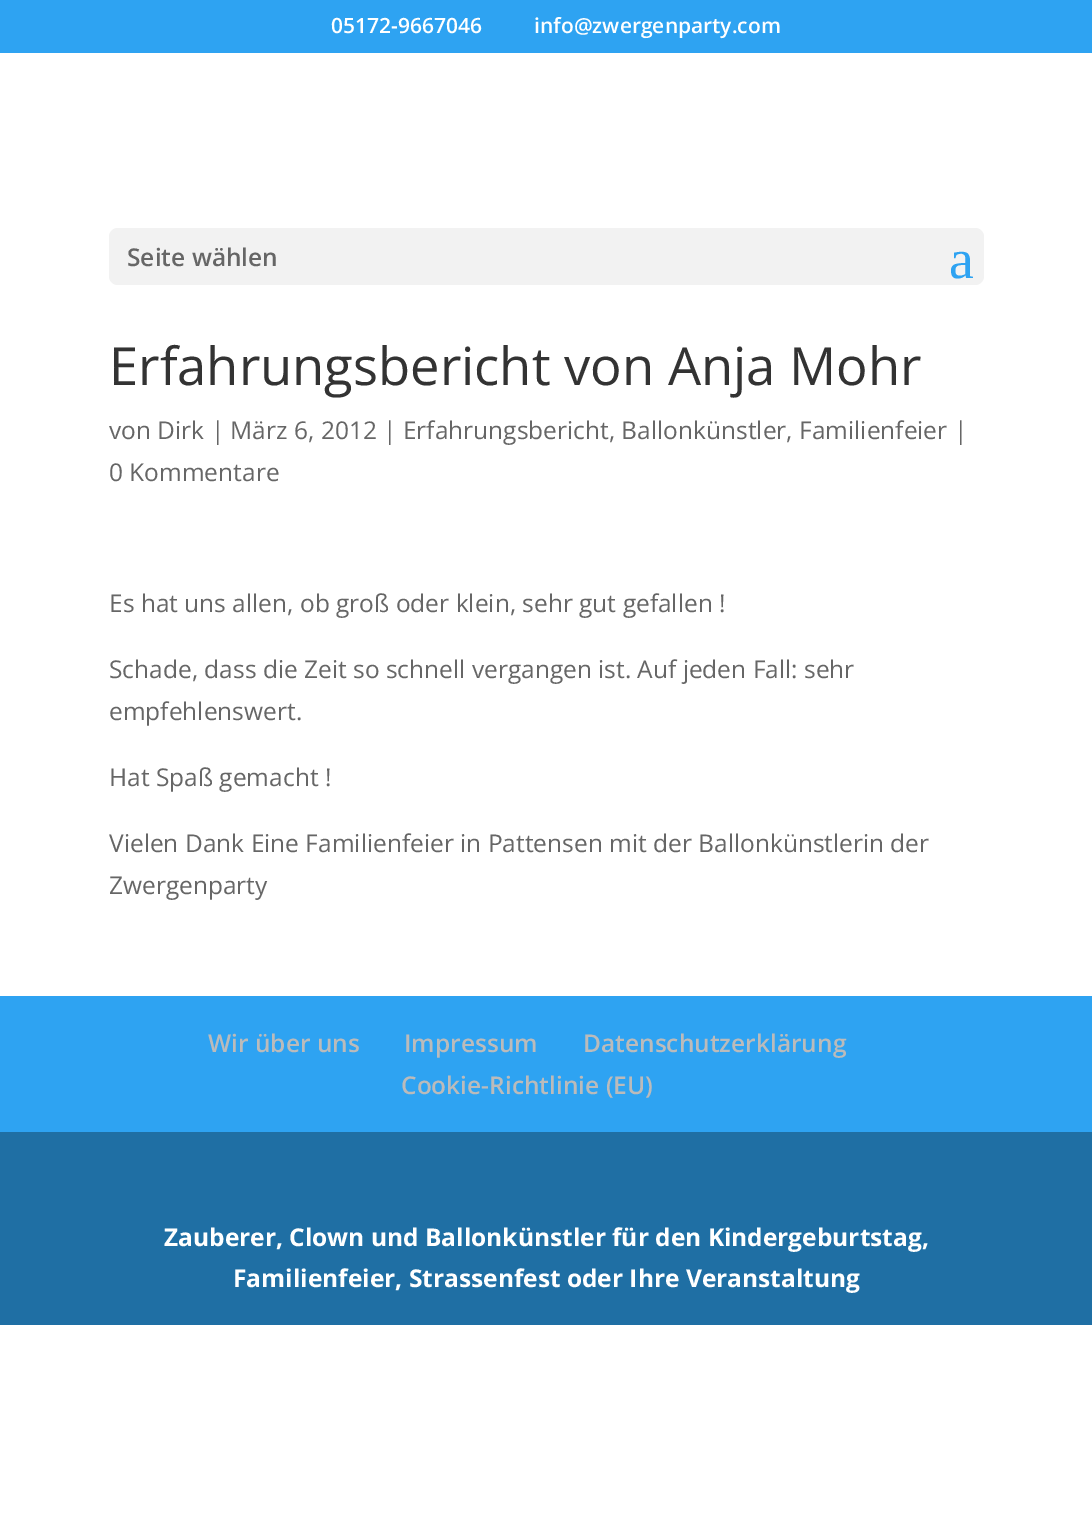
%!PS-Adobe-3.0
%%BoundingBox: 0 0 1092 1536
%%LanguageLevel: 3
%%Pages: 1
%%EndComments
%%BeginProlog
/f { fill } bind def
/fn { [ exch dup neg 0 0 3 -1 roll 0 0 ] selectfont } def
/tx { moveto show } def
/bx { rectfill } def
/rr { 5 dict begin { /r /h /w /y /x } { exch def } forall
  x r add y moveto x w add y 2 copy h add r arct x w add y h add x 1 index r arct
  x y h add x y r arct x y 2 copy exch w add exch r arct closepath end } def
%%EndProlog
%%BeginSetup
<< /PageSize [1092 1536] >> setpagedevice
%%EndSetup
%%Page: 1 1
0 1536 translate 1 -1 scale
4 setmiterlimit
1 setgray
0 0 1092 1536 bx
0.18 0.639 0.949 setrgbcolor
0 0 1092 53 bx
/OpenSans-SemiBold 21 fn
1 setgray
(05172-9667046) 331 33 tx
(info@zwergenparty.com) 534 33 tx
0.949 setgray
109 228 875 57 9 rr f
/OpenSans-SemiBold 24.5 fn
0.4 setgray
(Seite wählen) 127 266 tx
/LiberationSerif-Regular 56 fn
0.18 0.639 0.949 setrgbcolor
(a) 949 278 tx
/OpenSans-Regular 52.5 fn
0.2 setgray
(Erfahrungsbericht von Anja Mohr) 109 385 tx
/OpenSans-Regular 24.5 fn
0.4 setgray
(von Dirk | März 6, 2012 | Erfahrungsbericht, Ballonkünstler, Familienfeier |) 109 439 tx
(0 Kommentare) 109 481 tx
(Es hat uns allen, ob groß oder klein, sehr gut gefallen !) 109 612 tx
(Schade, dass die Zeit so schnell vergangen ist. Auf jeden Fall: sehr) 109 678 tx
(empfehlenswert.) 109 720 tx
(Hat Spaß gemacht !) 109 786 tx
(Vielen Dank Eine Familienfeier in Pattensen mit der Ballonkünstlerin der) 109 852 tx
(Zwergenparty) 109 894 tx
0.18 0.639 0.949 setrgbcolor
0 996 1092 136 bx
/OpenSans-SemiBold 24.5 fn
0.733 setgray
(Wir über uns) 208 1052 tx
(Impressum) 404 1052 tx
(Datenschutzerklärung) 583 1052 tx
(Cookie-Richtlinie \(EU\)) 401 1094 tx
0.122 0.435 0.643 setrgbcolor
0 1132 1092 193 bx
/OpenSans-Bold 24.5 fn
1 setgray
(Zauberer, Clown und Ballonkünstler für den Kindergeburtstag,) 164 1246 tx
(Familienfeier, Strassenfest oder Ihre Veranstaltung) 233 1287 tx
showpage
%%EOF
